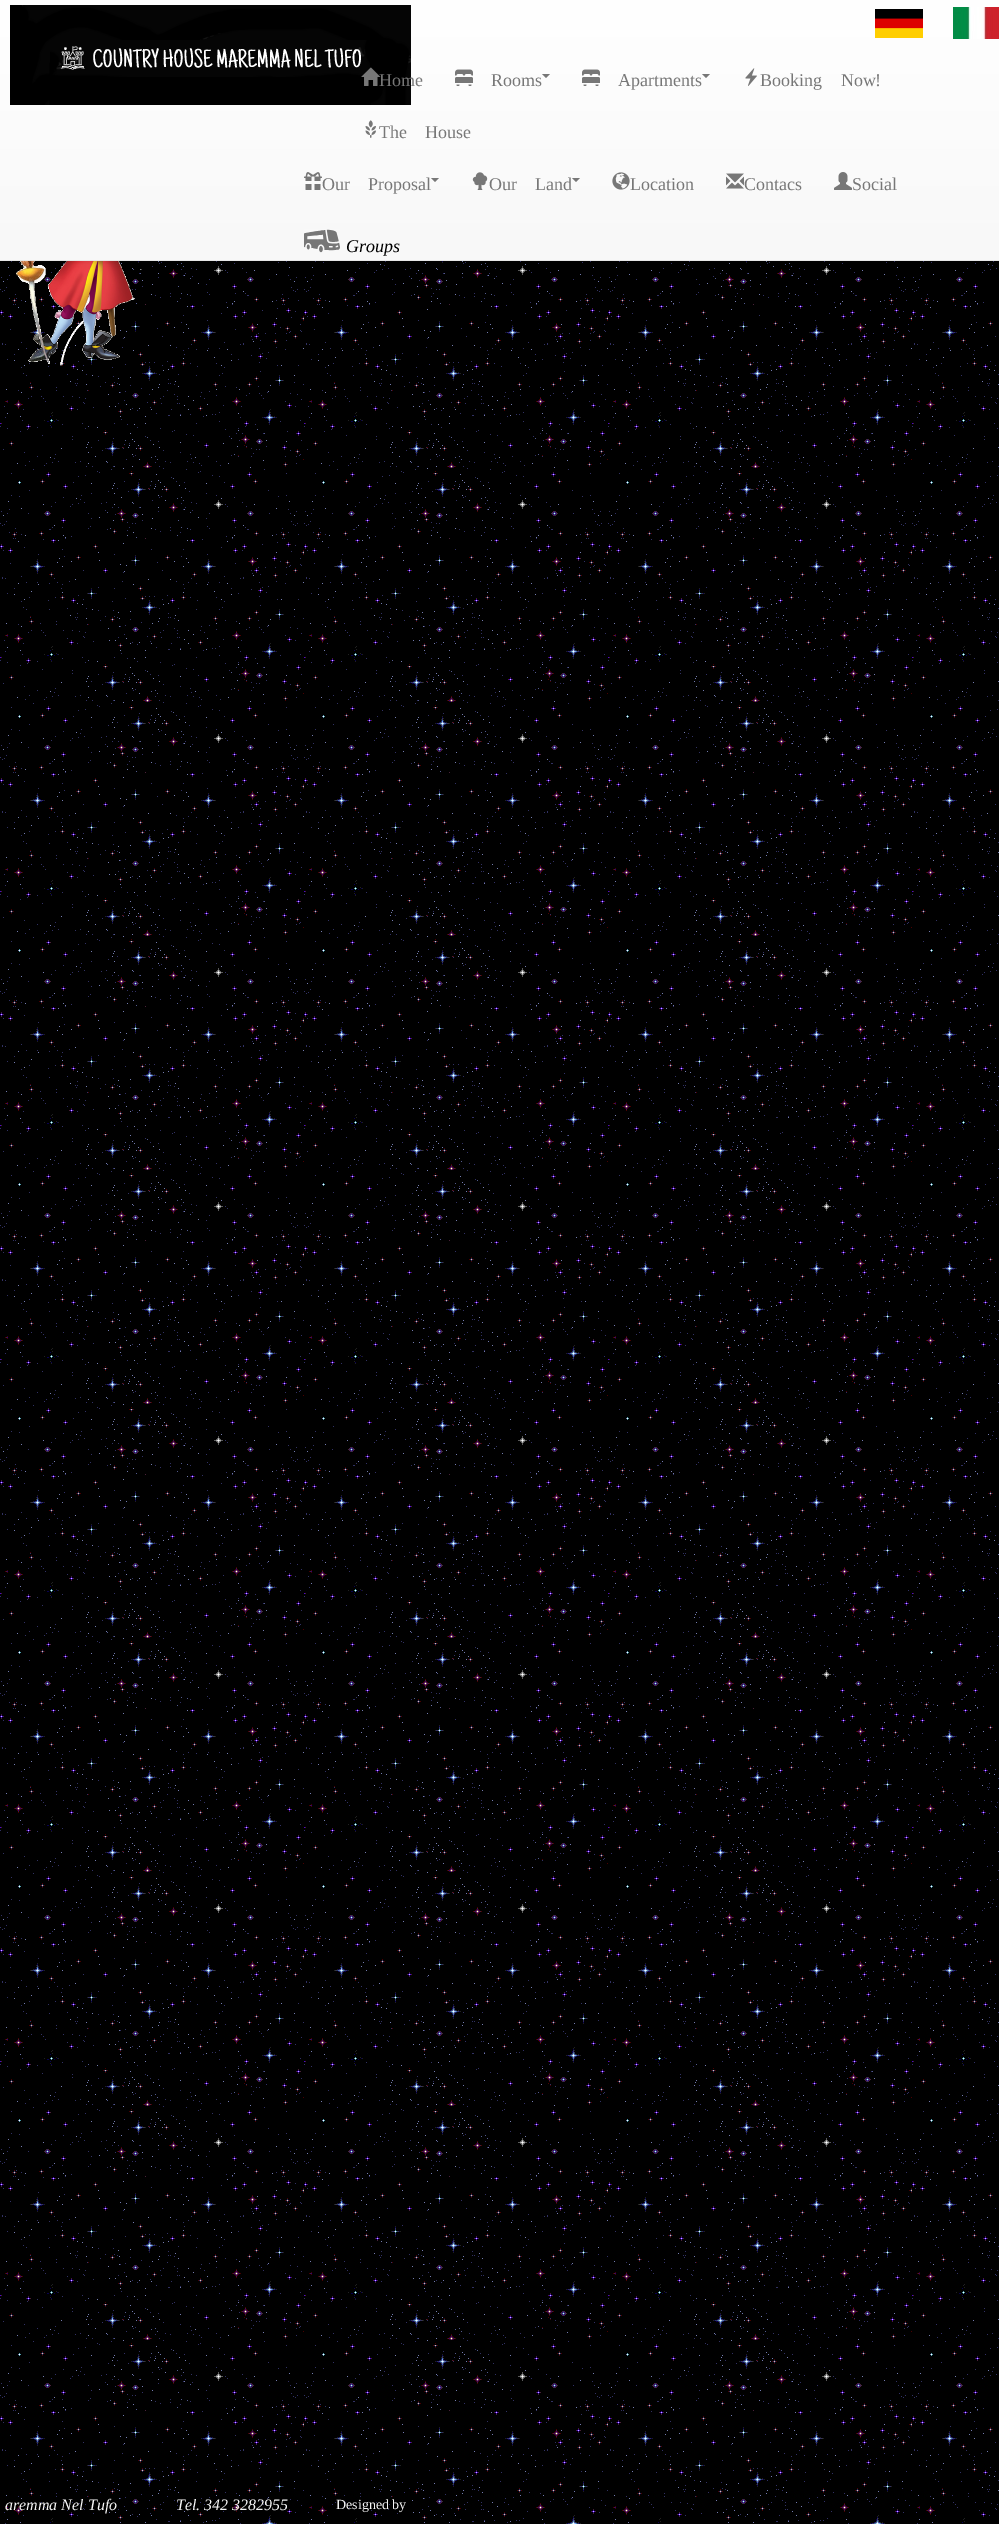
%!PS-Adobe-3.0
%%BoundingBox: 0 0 999 2524
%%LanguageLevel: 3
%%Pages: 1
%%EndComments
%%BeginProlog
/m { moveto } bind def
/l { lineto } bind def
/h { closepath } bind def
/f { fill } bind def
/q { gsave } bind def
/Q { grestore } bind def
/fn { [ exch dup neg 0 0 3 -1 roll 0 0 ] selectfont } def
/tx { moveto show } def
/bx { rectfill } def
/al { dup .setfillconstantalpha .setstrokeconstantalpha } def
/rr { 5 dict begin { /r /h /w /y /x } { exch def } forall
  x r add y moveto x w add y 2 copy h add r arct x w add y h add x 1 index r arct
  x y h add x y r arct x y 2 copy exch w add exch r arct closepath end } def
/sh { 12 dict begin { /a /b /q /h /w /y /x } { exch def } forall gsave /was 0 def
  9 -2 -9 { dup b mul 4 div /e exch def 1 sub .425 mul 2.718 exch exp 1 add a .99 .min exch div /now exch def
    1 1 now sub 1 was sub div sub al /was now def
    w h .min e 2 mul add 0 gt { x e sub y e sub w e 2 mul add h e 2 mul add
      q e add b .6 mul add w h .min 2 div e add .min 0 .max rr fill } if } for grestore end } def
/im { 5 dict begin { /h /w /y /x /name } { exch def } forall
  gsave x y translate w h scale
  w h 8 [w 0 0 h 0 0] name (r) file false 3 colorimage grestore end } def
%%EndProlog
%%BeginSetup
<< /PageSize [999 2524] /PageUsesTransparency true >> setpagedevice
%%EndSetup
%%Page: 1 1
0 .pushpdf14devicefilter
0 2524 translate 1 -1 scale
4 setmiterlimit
1 setgray
0 0 999 2524 bx
(image0.raw) 0 261 999 2263 im
(image14.raw) 16 261 126 105 im
0 setgray
0 1 999 261 0 2.5 0.07 sh
q 0 0 m 999 0 l 999 260 l 0 260 l h clip newpath
<< /ShadingType 2 /ColorSpace /DeviceRGB /Coords [500 0 500 260] /Extend [true true] /Function << /FunctionType 2 /Domain [0 1] /C0 [1 1 1] /C1 [0.973 0.973 0.973] /N 1 >> >> shfill Q
0.906 setgray
0 260 999 1 bx
(image1.raw) 10 5 401 100 im
(image2.raw) 875 9 48 29 im
(image3.raw) 953 7 46 32 im
(image4.raw) 361 67 20 19 im
/LiberationSerif-Regular 18 fn
0.467 setgray
(Home) 379 86 tx
(image5.raw) 455 69 18 17 im
(Rooms) 491 86 tx
542 74 m 550 74 l 546 78 l h f
(image5.raw) 582 69 18 17 im
(Apartments) 618 86 tx
702 74 m 710 74 l 706 78 l h f
(image6.raw) 745 68 12 18 im
760 86 m 14 0 32 (Booking Now!) widthshow
(image7.raw) 365 120 11 18 im
379 138 m 14 0 32 (The House) widthshow
(image8.raw) 304 172 18 18 im
322 190 m 14 0 32 (Our Proposal) widthshow
431 178 m 439 178 l 435 182 l h f
(image9.raw) 472 172 16 18 im
489 190 m 14 0 32 (Our Land) widthshow
572 178 m 580 178 l 576 182 l h f
(image10.raw) 612 172 18 18 im
(Location) 630 190 tx
(image11.raw) 726 173 18 16 im
(Contacs) 744 190 tx
(image12.raw) 834 172 18 18 im
(Social) 852 190 tx
(image13.raw) 304 229 36 24 im
/LiberationSerif-Italic 18 fn
0 setgray
(Groups) 346 252 tx
/LiberationSerif-Italic 16 fn
0.961 setgray
(aremma Nel Tufo) 5 2510 tx
(Tel. 342 3282955) 176 2510 tx
/LiberationSerif-Regular 14 fn
(Designed by) 336 2509 tx
.poppdf14devicefilter showpage
%%EOF
